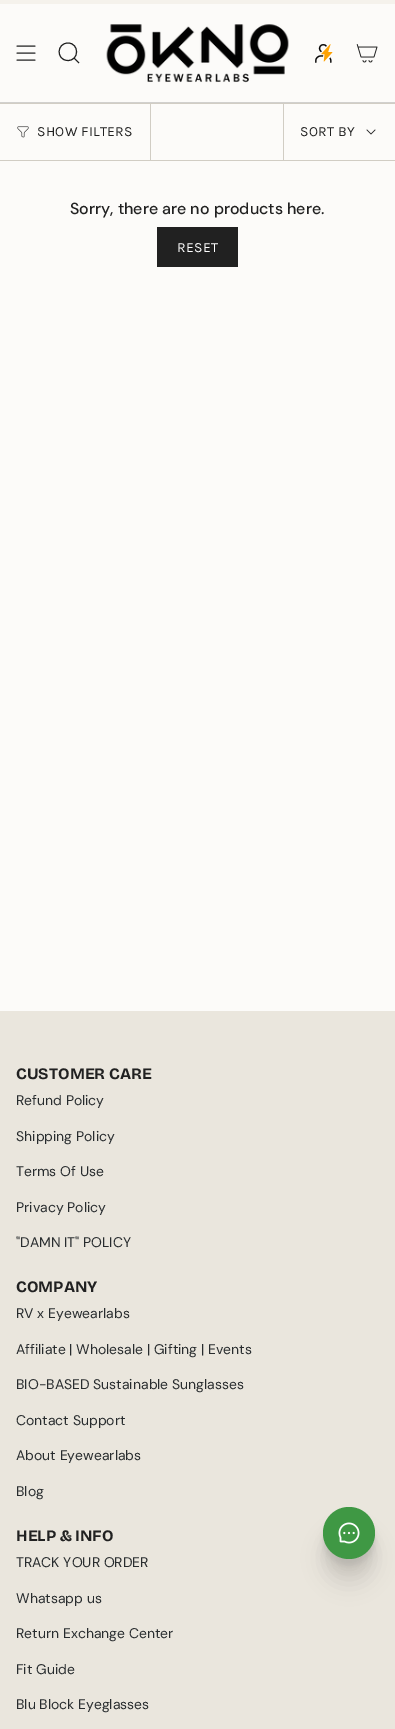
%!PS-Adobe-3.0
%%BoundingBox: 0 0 395 1729
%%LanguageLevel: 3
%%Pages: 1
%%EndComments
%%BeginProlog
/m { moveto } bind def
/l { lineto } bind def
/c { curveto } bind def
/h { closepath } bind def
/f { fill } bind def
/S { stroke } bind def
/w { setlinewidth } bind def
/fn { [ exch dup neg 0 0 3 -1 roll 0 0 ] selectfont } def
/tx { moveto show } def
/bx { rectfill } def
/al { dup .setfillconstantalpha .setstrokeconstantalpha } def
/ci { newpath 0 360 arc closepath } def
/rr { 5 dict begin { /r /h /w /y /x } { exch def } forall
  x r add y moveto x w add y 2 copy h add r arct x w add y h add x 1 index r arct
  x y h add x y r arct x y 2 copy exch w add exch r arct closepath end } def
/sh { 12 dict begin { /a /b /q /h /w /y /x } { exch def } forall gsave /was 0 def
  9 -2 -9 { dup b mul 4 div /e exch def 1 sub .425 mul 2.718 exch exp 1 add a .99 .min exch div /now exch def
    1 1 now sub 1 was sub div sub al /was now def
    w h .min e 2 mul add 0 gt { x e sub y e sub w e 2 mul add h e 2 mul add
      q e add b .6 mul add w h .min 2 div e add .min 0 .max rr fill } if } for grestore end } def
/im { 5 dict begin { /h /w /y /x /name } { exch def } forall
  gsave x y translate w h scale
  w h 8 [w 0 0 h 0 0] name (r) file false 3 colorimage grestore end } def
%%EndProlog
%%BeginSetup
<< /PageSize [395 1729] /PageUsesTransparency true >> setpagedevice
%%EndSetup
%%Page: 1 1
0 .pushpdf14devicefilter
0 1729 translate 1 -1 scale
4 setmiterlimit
0.988 0.984 0.976 setrgbcolor
0 0 395 1729 bx
0.961 0.949 0.925 setrgbcolor
0 0 395 4 bx
0.129 setgray
1 setlinecap
1 setlinejoin
17 46 m 35 46 l 17 53 m 35 53 l 17 60 m 35 60 l S
0 setlinecap
0 setlinejoin
68 43 m 79.5 43 79.5 61 67.5 60.5 c 56 60 56.5 43 68 43 c h 74 58 m 79 63 l S
(image0.raw) 106 24 183 59 im
(image1.raw) 315 44 18 19 im
(image2.raw) 356 44 22 19 im
0.82 0.816 0.808 setrgbcolor
0 102 395 1 bx
0.82 0.804 0.769 setrgbcolor
0 103 395 1 bx
0 160 395 1 bx
150 104 1 56 bx
(image3.raw) 17 126 12 12 im
/Karla-Regular 14 fn
0.129 setgray
37 136 m 0.3 0 (SHOW FILTERS) ashow
0.82 0.804 0.769 setrgbcolor
283 104 1 56 bx
0.129 setgray
300 136 m 0.3 0 (SORT BY) ashow
0.7 w
1 setlinecap
1 setlinejoin
367 130 m 371 134 l 375 130 l S
/DMSans-Medium 16 fn
(Sorry, there are no products here.) 70 214 tx
157 227 81 40 bx
/Karla-Regular 14 fn
1 setgray
177 252 m 0.3 0 (RESET) ashow
0.918 0.902 0.867 setrgbcolor
0 1011 395 718 bx
/BricolageGrotesque-Bold 16 fn
0.129 setgray
(CUSTOMER CARE) 16 1079 tx
/DMSans-Regular 14 fn
0.157 0.173 0.18 setrgbcolor
(Refund Policy) 16 1105 tx
(Shipping Policy) 16 1141 tx
(Terms Of Use) 16 1176 tx
(Privacy Policy) 16 1212 tx
("DAMN IT" POLICY) 16 1247 tx
/BricolageGrotesque-Bold 16 fn
0.129 setgray
(COMPANY) 16 1292 tx
/DMSans-Regular 14 fn
0.157 0.173 0.18 setrgbcolor
(RV x Eyewearlabs) 16 1318 tx
(Affiliate | Wholesale | Gifting | Events) 16 1354 tx
(BIO-BASED Sustainable Sunglasses) 16 1389 tx
(Contact Support) 16 1425 tx
(About Eyewearlabs) 16 1460 tx
(Blog) 16 1496 tx
/BricolageGrotesque-Bold 16 fn
0.129 setgray
(HELP & INFO) 16 1541 tx
/DMSans-Regular 14 fn
0.157 0.173 0.18 setrgbcolor
(TRACK YOUR ORDER) 16 1567 tx
(Whatsapp us) 16 1603 tx
(Return Exchange Center) 16 1638 tx
(Fit Guide) 16 1674 tx
(Blu Block Eyeglasses) 16 1709 tx
0 setgray
323 1532 52 52 26 10 0.1 sh
323 1520 52 52 26 5 0.06 sh
323 1513 52 52 26 2 0.06 sh
0.247 0.596 0.267 setrgbcolor
349 1533 26 ci f
(image4.raw) 338 1522 22 22 im
.poppdf14devicefilter showpage
%%EOF
